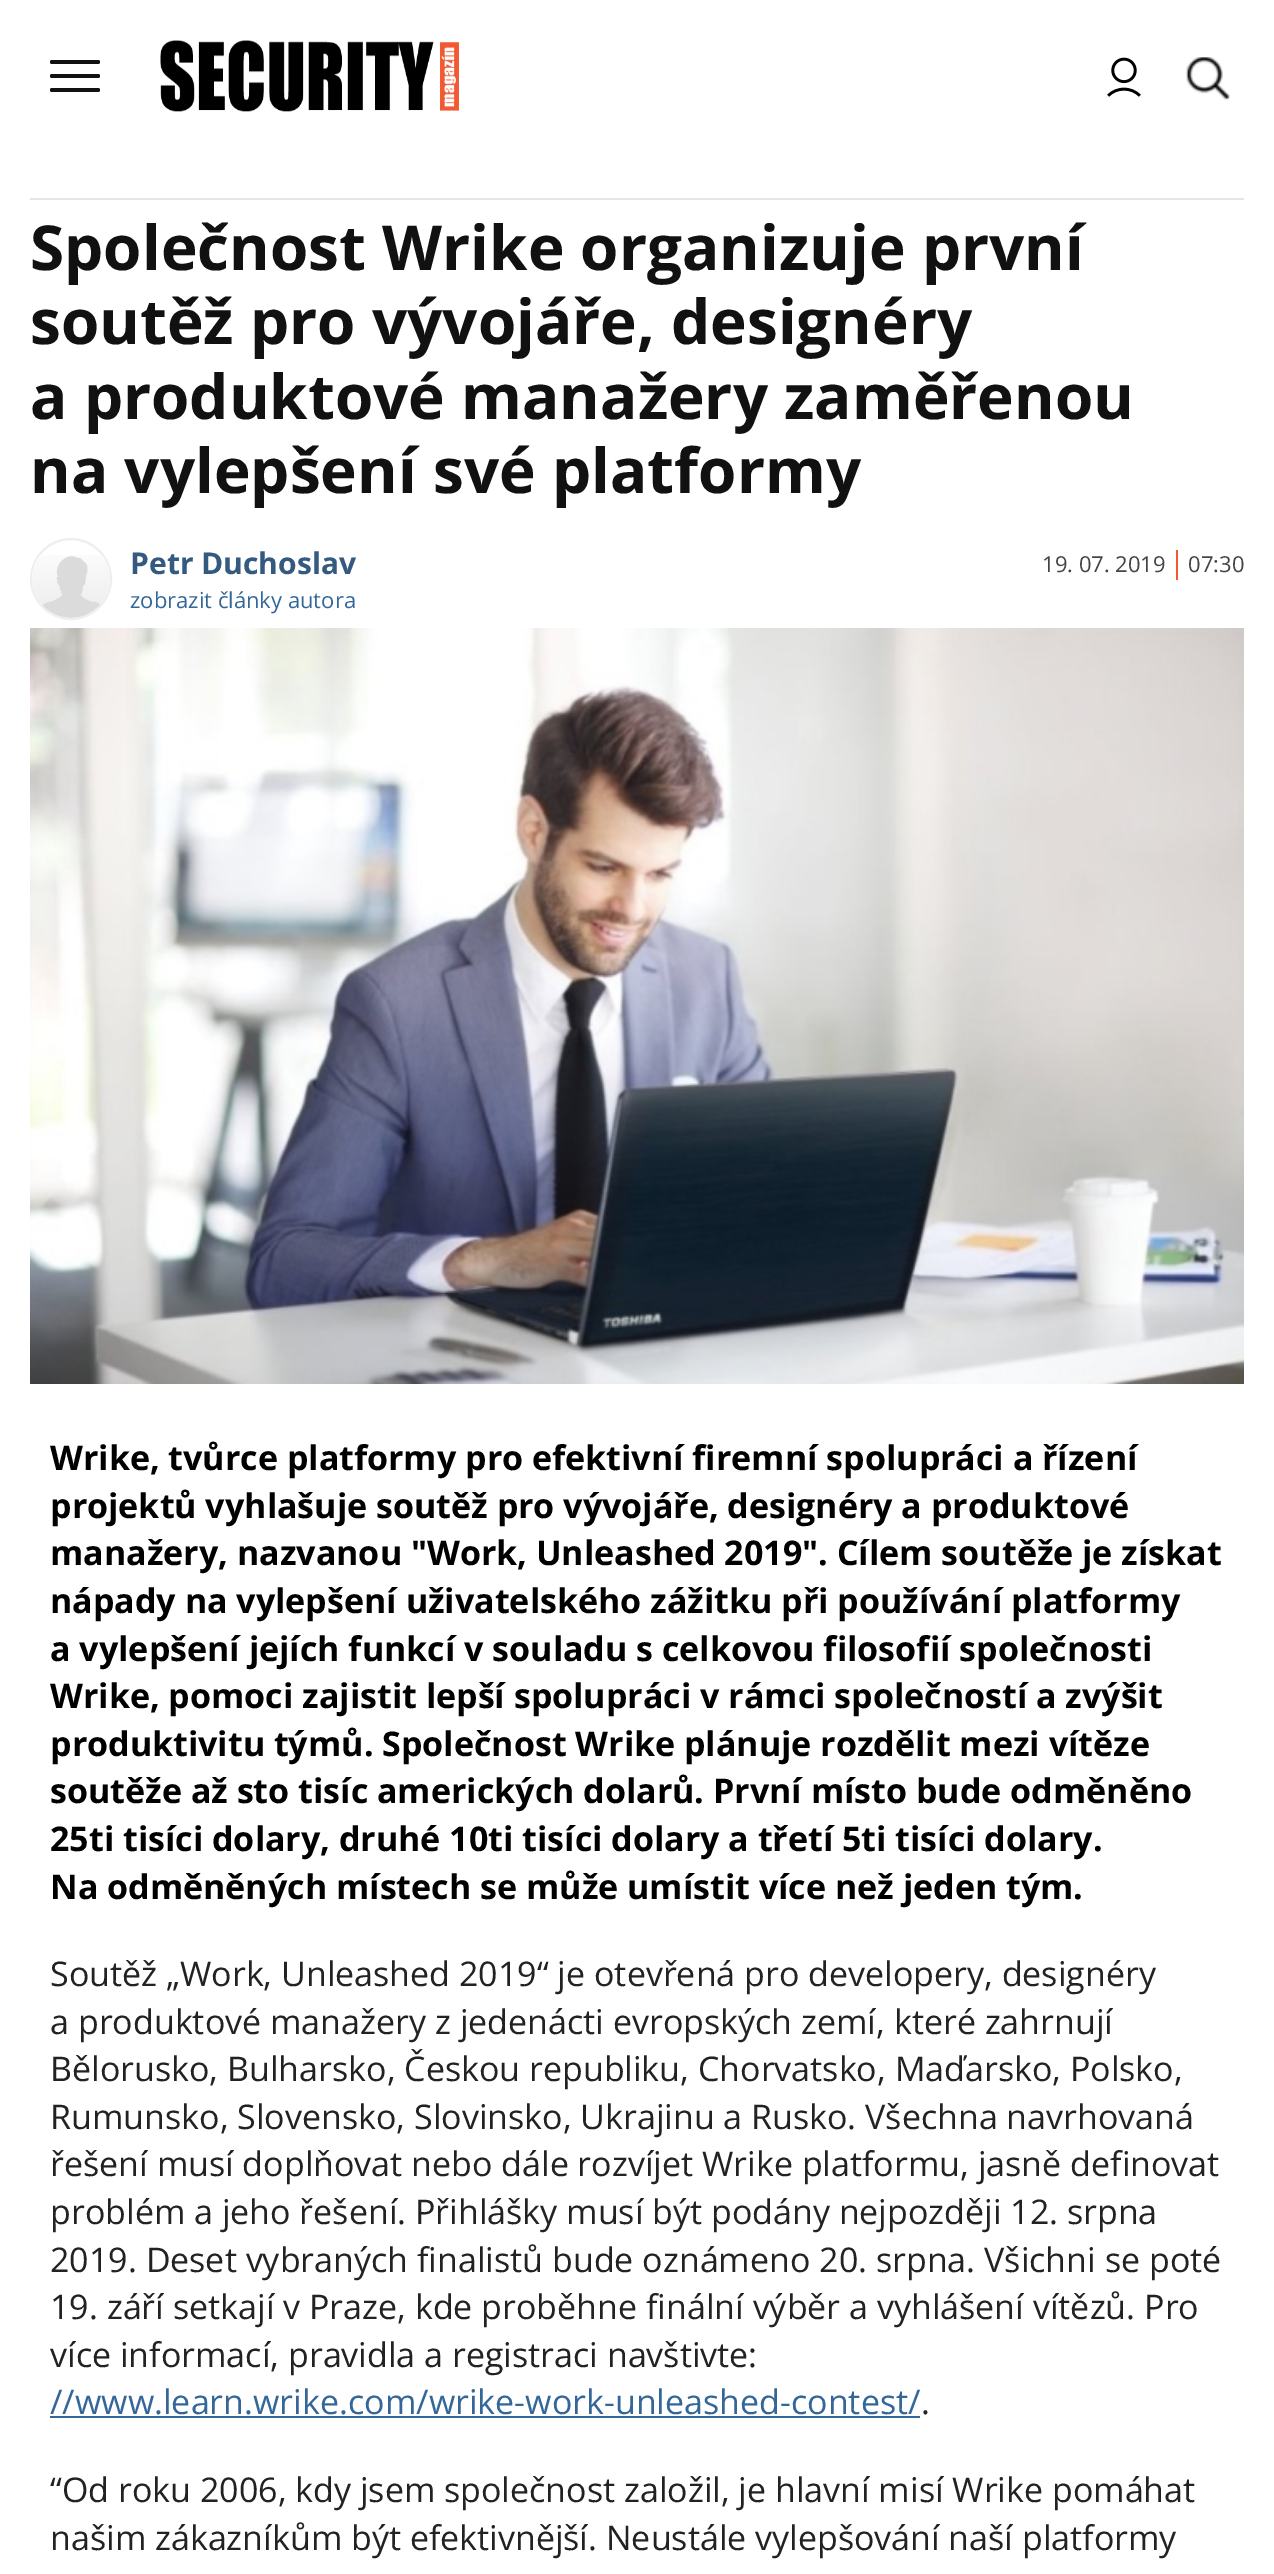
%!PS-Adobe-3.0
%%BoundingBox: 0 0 1274 2574
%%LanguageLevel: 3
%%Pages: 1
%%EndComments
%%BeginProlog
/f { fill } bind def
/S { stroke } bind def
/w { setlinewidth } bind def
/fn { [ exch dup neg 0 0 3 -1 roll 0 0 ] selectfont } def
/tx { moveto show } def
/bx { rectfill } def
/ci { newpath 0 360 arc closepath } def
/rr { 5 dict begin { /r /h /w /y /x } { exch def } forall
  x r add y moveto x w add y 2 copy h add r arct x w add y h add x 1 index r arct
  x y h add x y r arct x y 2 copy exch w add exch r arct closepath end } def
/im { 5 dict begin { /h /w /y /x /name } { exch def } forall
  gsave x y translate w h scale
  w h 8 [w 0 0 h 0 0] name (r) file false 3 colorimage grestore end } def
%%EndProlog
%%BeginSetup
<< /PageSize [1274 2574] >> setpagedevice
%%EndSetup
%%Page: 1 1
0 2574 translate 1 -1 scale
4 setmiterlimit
1 setgray
0 0 1274 2574 bx
0.067 setgray
50 60 50 4 2 rr f
50 74 50 4 2 rr f
50 88 50 4 2 rr f
(image0.raw) 160 40 299 72 im
(image1.raw) 1107 57 34 40 im
(image2.raw) 1186 57 44 44 im
0.898 setgray
30 198 1214 2 bx
/OpenSans-Bold 62 fn
0.067 setgray
(Společnost Wrike organizuje první) 30 270 tx
(soutěž pro vývojáře, designéry) 30 344 tx
(a produktové manažery zaměřenou) 30 419 tx
(na vylepšení své platformy) 30 493 tx
0.933 setgray
2 w
71 579 40 ci S
(image3.raw) 32 555 78 63 im
/OpenSans-Bold 30 fn
0.208 0.353 0.502 setrgbcolor
(Petr Duchoslav) 130 574 tx
/OpenSans-Regular 22 fn
0.2 0.4 0.6 setrgbcolor
(zobrazit články autora) 130 608 tx
0.267 setgray
(19. 07. 2019) 1042 572 tx
0.945 0.349 0.2 setrgbcolor
1176 550 2 30 bx
0.267 setgray
(07:30) 1188 572 tx
(image4.raw) 30 628 1214 756 im
/OpenSans-Bold 34 fn
0 setgray
(Wrike, tvůrce platformy pro efektivní firemní spolupráci a řízení) 50 1470 tx
(projektů vyhlašuje soutěž pro vývojáře, designéry a produktové) 50 1518 tx
(manažery, nazvanou "Work, Unleashed 2019". Cílem soutěže je získat) 50 1565 tx
(nápady na vylepšení uživatelského zážitku při používání platformy) 50 1613 tx
(a vylepšení jejích funkcí v souladu s celkovou filosofií společnosti) 50 1661 tx
(Wrike, pomoci zajistit lepší spolupráci v rámci společností a zvýšit) 50 1708 tx
(produktivitu týmů. Společnost Wrike plánuje rozdělit mezi vítěze) 50 1756 tx
(soutěže až sto tisíc amerických dolarů. První místo bude odměněno) 50 1803 tx
(25ti tisíci dolary, druhé 10ti tisíci dolary a třetí 5ti tisíci dolary.) 50 1851 tx
(Na odměněných místech se může umístit více než jeden tým.) 50 1899 tx
/OpenSans-Regular 34 fn
0.133 setgray
(Soutěž „Work, Unleashed 2019“ je otevřená pro developery, designéry) 50 1986 tx
(a produktové manažery z jedenácti evropských zemí, které zahrnují) 50 2034 tx
(Bělorusko, Bulharsko, Českou republiku, Chorvatsko, Maďarsko, Polsko,) 50 2081 tx
(Rumunsko, Slovensko, Slovinsko, Ukrajinu a Rusko. Všechna navrhovaná) 50 2129 tx
(řešení musí doplňovat nebo dále rozvíjet Wrike platformu, jasně definovat) 50 2176 tx
(problém a jeho řešení. Přihlášky musí být podány nejpozději 12. srpna) 50 2224 tx
(2019. Deset vybraných finalistů bude oznámeno 20. srpna. Všichni se poté) 50 2272 tx
(19. září setkají v Praze, kde proběhne finální výběr a vyhlášení vítězů. Pro) 50 2319 tx
(více informací, pravidla a registraci navštivte:) 50 2367 tx
0.2 0.4 0.6 setrgbcolor
(//www.learn.wrike.com/wrike-work-unleashed-contest/) 50 2414 tx
50 2416 870 2 bx
0.133 setgray
(.) 921 2414 tx
(“Od roku 2006, kdy jsem společnost založil, je hlavní misí Wrike pomáhat) 50 2502 tx
(našim zákazníkům být efektivnější. Neustále vylepšování naší platformy) 50 2550 tx
showpage
%%EOF
